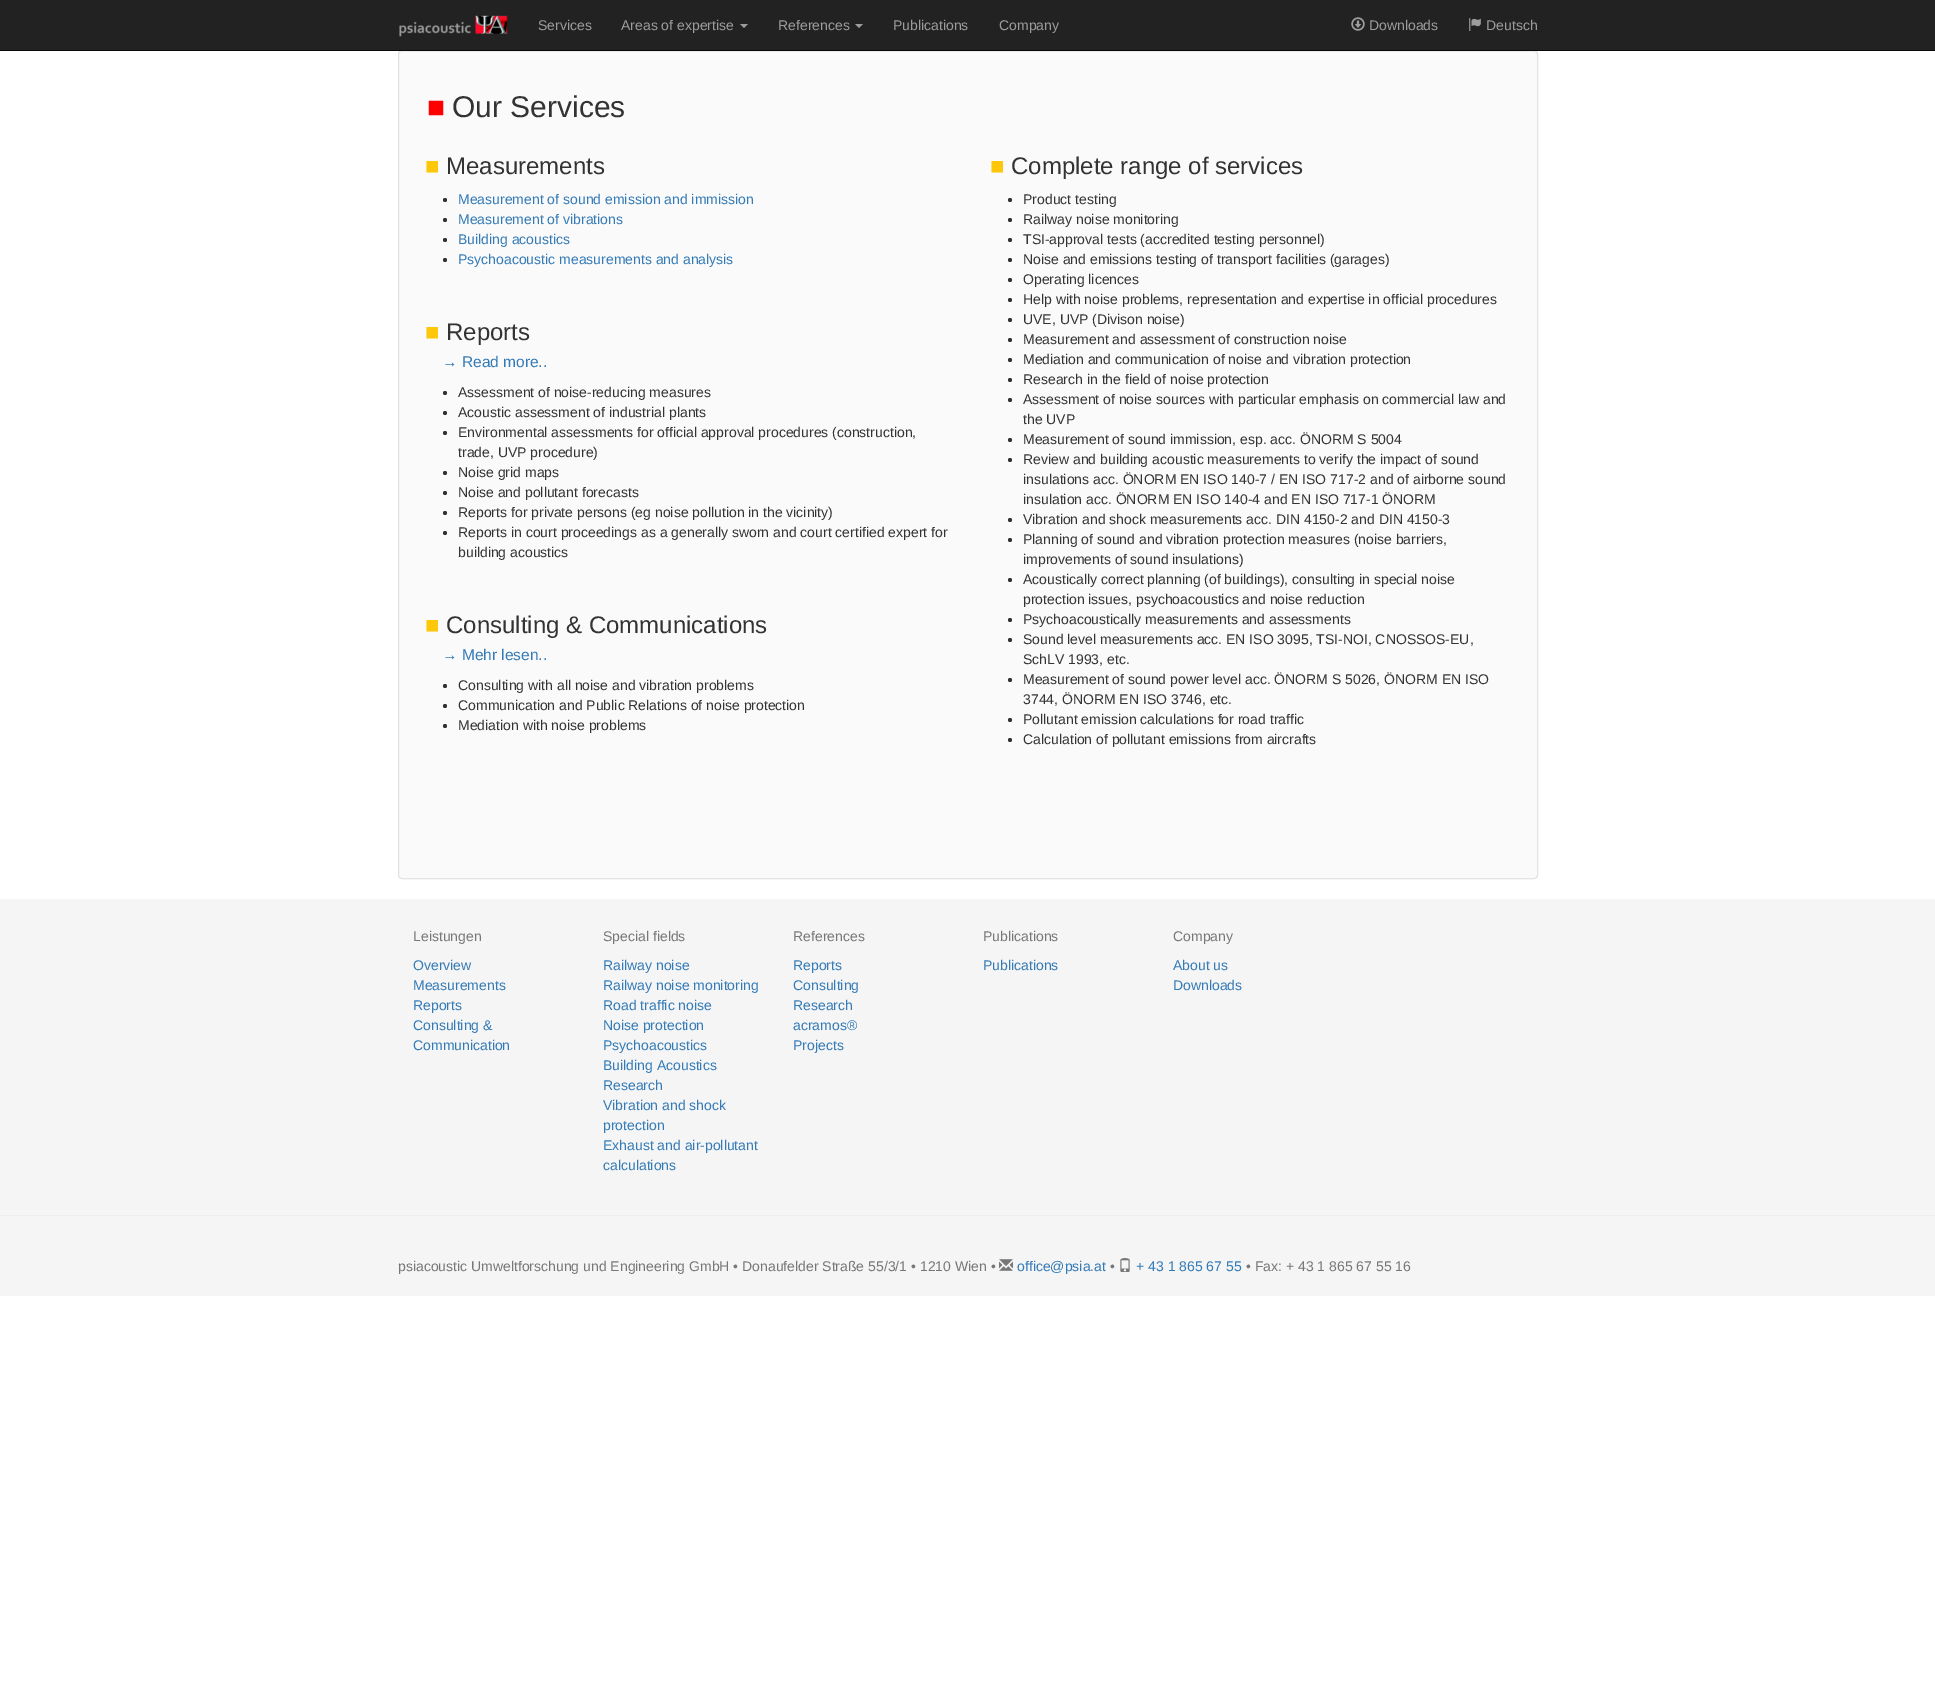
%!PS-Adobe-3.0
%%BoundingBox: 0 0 1935 1683
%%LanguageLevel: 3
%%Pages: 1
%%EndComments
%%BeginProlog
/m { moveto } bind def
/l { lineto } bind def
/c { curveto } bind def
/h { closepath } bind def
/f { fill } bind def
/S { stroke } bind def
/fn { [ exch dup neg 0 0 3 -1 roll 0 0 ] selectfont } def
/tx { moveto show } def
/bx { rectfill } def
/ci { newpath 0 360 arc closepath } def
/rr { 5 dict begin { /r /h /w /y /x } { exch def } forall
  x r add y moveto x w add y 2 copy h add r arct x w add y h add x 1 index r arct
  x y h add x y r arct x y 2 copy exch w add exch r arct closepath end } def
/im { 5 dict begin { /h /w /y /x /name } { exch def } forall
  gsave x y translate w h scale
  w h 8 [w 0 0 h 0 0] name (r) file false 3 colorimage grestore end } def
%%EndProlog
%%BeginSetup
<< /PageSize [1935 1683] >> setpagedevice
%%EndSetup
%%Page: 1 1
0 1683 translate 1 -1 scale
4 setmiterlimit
1 setgray
0 0 1935 1683 bx
0.133 setgray
0 0 1935 50 bx
0.98 setgray
398 50 1140 829 4 rr f
0.933 setgray
402 52 m 1534 52 l 1536 52 1537 53 1537 55 c 1537 54 l 1537 52 1536 51 1534 51 c 402 51 l 400 51 399 52 399 54 c 399 55 l 399 53 400 52 402 52 c h f
0.89 setgray
398.5 50.5 1139 828 3.5 rr S
0.031 setgray
0 50 1935 1 bx
(image0.raw) 399 15 109 22 im
/LiberationSans-Regular 14 fn
0.616 setgray
(Services) 538 30 tx
(Areas of expertise) 621 30 tx
740 24 m 748 24 l 744 28 l h f
(References) 778 30 tx
855 24 m 863 24 l 859 28 l h f
(Publications) 893 30 tx
(Company) 999 30 tx
(image1.raw) 1351 17 14 14 im
(Downloads) 1369 30 tx
(image2.raw) 1469 18 12 13 im
(Deutsch) 1486 30 tx
/LiberationSerif-Regular 30 fn
1 0 0 setrgbcolor
(■) 427 117 tx
/LiberationSans-Regular 30 fn
0.2 setgray
(Our Services) 452 117 tx
/LiberationSerif-Regular 24 fn
1 0.78 0.039 setrgbcolor
(■) 425 174 tx
/LiberationSans-Regular 24 fn
0.2 setgray
(Measurements) 446 174 tx
445 200 2 ci f
/LiberationSans-Regular 14 fn
0.2 0.478 0.718 setrgbcolor
(Measurement of sound emission and immission) 458 204 tx
0.2 setgray
445 220 2 ci f
0.2 0.478 0.718 setrgbcolor
(Measurement of vibrations) 458 224 tx
0.2 setgray
445 240 2 ci f
0.2 0.478 0.718 setrgbcolor
(Building acoustics) 458 244 tx
0.2 setgray
445 260 2 ci f
0.2 0.478 0.718 setrgbcolor
(Psychoacoustic measurements and analysis) 458 264 tx
/LiberationSerif-Regular 24 fn
1 0.78 0.039 setrgbcolor
(■) 425 340 tx
/LiberationSans-Regular 24 fn
0.2 setgray
(Reports) 446 340 tx
/LiberationSans-Regular 15.5 fn
0.2 0.478 0.718 setrgbcolor
(→ Read more..) 442 367 tx
0.2 setgray
445 393 2 ci f
/LiberationSans-Regular 14 fn
(Assessment of noise-reducing measures) 458 397 tx
445 413 2 ci f
(Acoustic assessment of industrial plants) 458 417 tx
445 433 2 ci f
(Environmental assessments for official approval procedures \(construction,) 458 437 tx
(trade, UVP procedure\)) 458 457 tx
445 473 2 ci f
(Noise grid maps) 458 477 tx
445 493 2 ci f
(Noise and pollutant forecasts) 458 497 tx
445 513 2 ci f
(Reports for private persons \(eg noise pollution in the vicinity\)) 458 517 tx
445 533 2 ci f
(Reports in court proceedings as a generally sworn and court certified expert for) 458 537 tx
(building acoustics) 458 557 tx
/LiberationSerif-Regular 24 fn
1 0.78 0.039 setrgbcolor
(■) 425 633 tx
/LiberationSans-Regular 24 fn
0.2 setgray
(Consulting & Communications) 446 633 tx
/LiberationSans-Regular 15.5 fn
0.2 0.478 0.718 setrgbcolor
(→ Mehr lesen..) 442 660 tx
0.2 setgray
445 686 2 ci f
/LiberationSans-Regular 14 fn
(Consulting with all noise and vibration problems) 458 690 tx
445 706 2 ci f
(Communication and Public Relations of noise protection) 458 710 tx
445 726 2 ci f
(Mediation with noise problems) 458 730 tx
/LiberationSerif-Regular 24 fn
1 0.78 0.039 setrgbcolor
(■) 990 174 tx
/LiberationSans-Regular 24 fn
0.2 setgray
(Complete range of services) 1011 174 tx
1010 200 2 ci f
/LiberationSans-Regular 14 fn
(Product testing) 1023 204 tx
1010 220 2 ci f
(Railway noise monitoring) 1023 224 tx
1010 240 2 ci f
(TSI-approval tests \(accredited testing personnel\)) 1023 244 tx
1010 260 2 ci f
(Noise and emissions testing of transport facilities \(garages\)) 1023 264 tx
1010 280 2 ci f
(Operating licences) 1023 284 tx
1010 300 2 ci f
(Help with noise problems, representation and expertise in official procedures) 1023 304 tx
1010 320 2 ci f
(UVE, UVP \(Divison noise\)) 1023 324 tx
1010 340 2 ci f
(Measurement and assessment of construction noise) 1023 344 tx
1010 360 2 ci f
(Mediation and communication of noise and vibration protection) 1023 364 tx
1010 380 2 ci f
(Research in the field of noise protection) 1023 384 tx
1010 400 2 ci f
(Assessment of noise sources with particular emphasis on commercial law and) 1023 404 tx
(the UVP) 1023 424 tx
1010 440 2 ci f
(Measurement of sound immission, esp. acc. ÖNORM S 5004) 1023 444 tx
1010 460 2 ci f
(Review and building acoustic measurements to verify the impact of sound) 1023 464 tx
(insulations acc. ÖNORM EN ISO 140-7 / EN ISO 717-2 and of airborne sound) 1023 484 tx
(insulation acc. ÖNORM EN ISO 140-4 and EN ISO 717-1 ÖNORM) 1023 504 tx
1010 520 2 ci f
(Vibration and shock measurements acc. DIN 4150-2 and DIN 4150-3) 1023 524 tx
1010 540 2 ci f
(Planning of sound and vibration protection measures \(noise barriers,) 1023 544 tx
(improvements of sound insulations\)) 1023 564 tx
1010 580 2 ci f
(Acoustically correct planning \(of buildings\), consulting in special noise) 1023 584 tx
(protection issues, psychoacoustics and noise reduction) 1023 604 tx
1010 620 2 ci f
(Psychoacoustically measurements and assessments) 1023 624 tx
1010 640 2 ci f
(Sound level measurements acc. EN ISO 3095, TSI-NOI, CNOSSOS-EU,) 1023 644 tx
(SchLV 1993, etc.) 1023 664 tx
1010 680 2 ci f
(Measurement of sound power level acc. ÖNORM S 5026, ÖNORM EN ISO) 1023 684 tx
(3744, ÖNORM EN ISO 3746, etc.) 1023 704 tx
1010 720 2 ci f
(Pollutant emission calculations for road traffic) 1023 724 tx
1010 740 2 ci f
(Calculation of pollutant emissions from aircrafts) 1023 744 tx
0.961 setgray
0 899 1935 397 bx
0.467 setgray
(Leistungen) 413 941 tx
0.2 0.478 0.718 setrgbcolor
(Overview) 413 970 tx
(Measurements) 413 990 tx
(Reports) 413 1010 tx
(Consulting &) 413 1030 tx
(Communication) 413 1050 tx
0.467 setgray
(Special fields) 603 941 tx
0.2 0.478 0.718 setrgbcolor
(Railway noise) 603 970 tx
(Railway noise monitoring) 603 990 tx
(Road traffic noise) 603 1010 tx
(Noise protection) 603 1030 tx
(Psychoacoustics) 603 1050 tx
(Building Acoustics) 603 1070 tx
(Research) 603 1090 tx
(Vibration and shock) 603 1110 tx
(protection) 603 1130 tx
(Exhaust and air-pollutant) 603 1150 tx
(calculations) 603 1170 tx
0.467 setgray
(References) 793 941 tx
0.2 0.478 0.718 setrgbcolor
(Reports) 793 970 tx
(Consulting) 793 990 tx
(Research) 793 1010 tx
(acramos®) 793 1030 tx
(Projects) 793 1050 tx
0.467 setgray
(Publications) 983 941 tx
0.2 0.478 0.718 setrgbcolor
(Publications) 983 970 tx
0.467 setgray
(Company) 1173 941 tx
0.2 0.478 0.718 setrgbcolor
(About us) 1173 970 tx
(Downloads) 1173 990 tx
0.933 setgray
0 1215 1935 1 bx
0.467 setgray
(psiacoustic Umweltforschung und Engineering GmbH • Donaufelder Straße 55/3/1 • 1210 Wien •) 398 1271 tx
(image3.raw) 999 1259 14 12 im
0.2 0.478 0.718 setrgbcolor
(office@psia.at) 1017 1271 tx
0.467 setgray
(•) 1110 1271 tx
(image4.raw) 1120 1258 10 14 im
0.2 0.478 0.718 setrgbcolor
(+ 43 1 865 67 55) 1136 1271 tx
0.467 setgray
(• Fax: + 43 1 865 67 55 16) 1246 1271 tx
showpage
%%EOF
